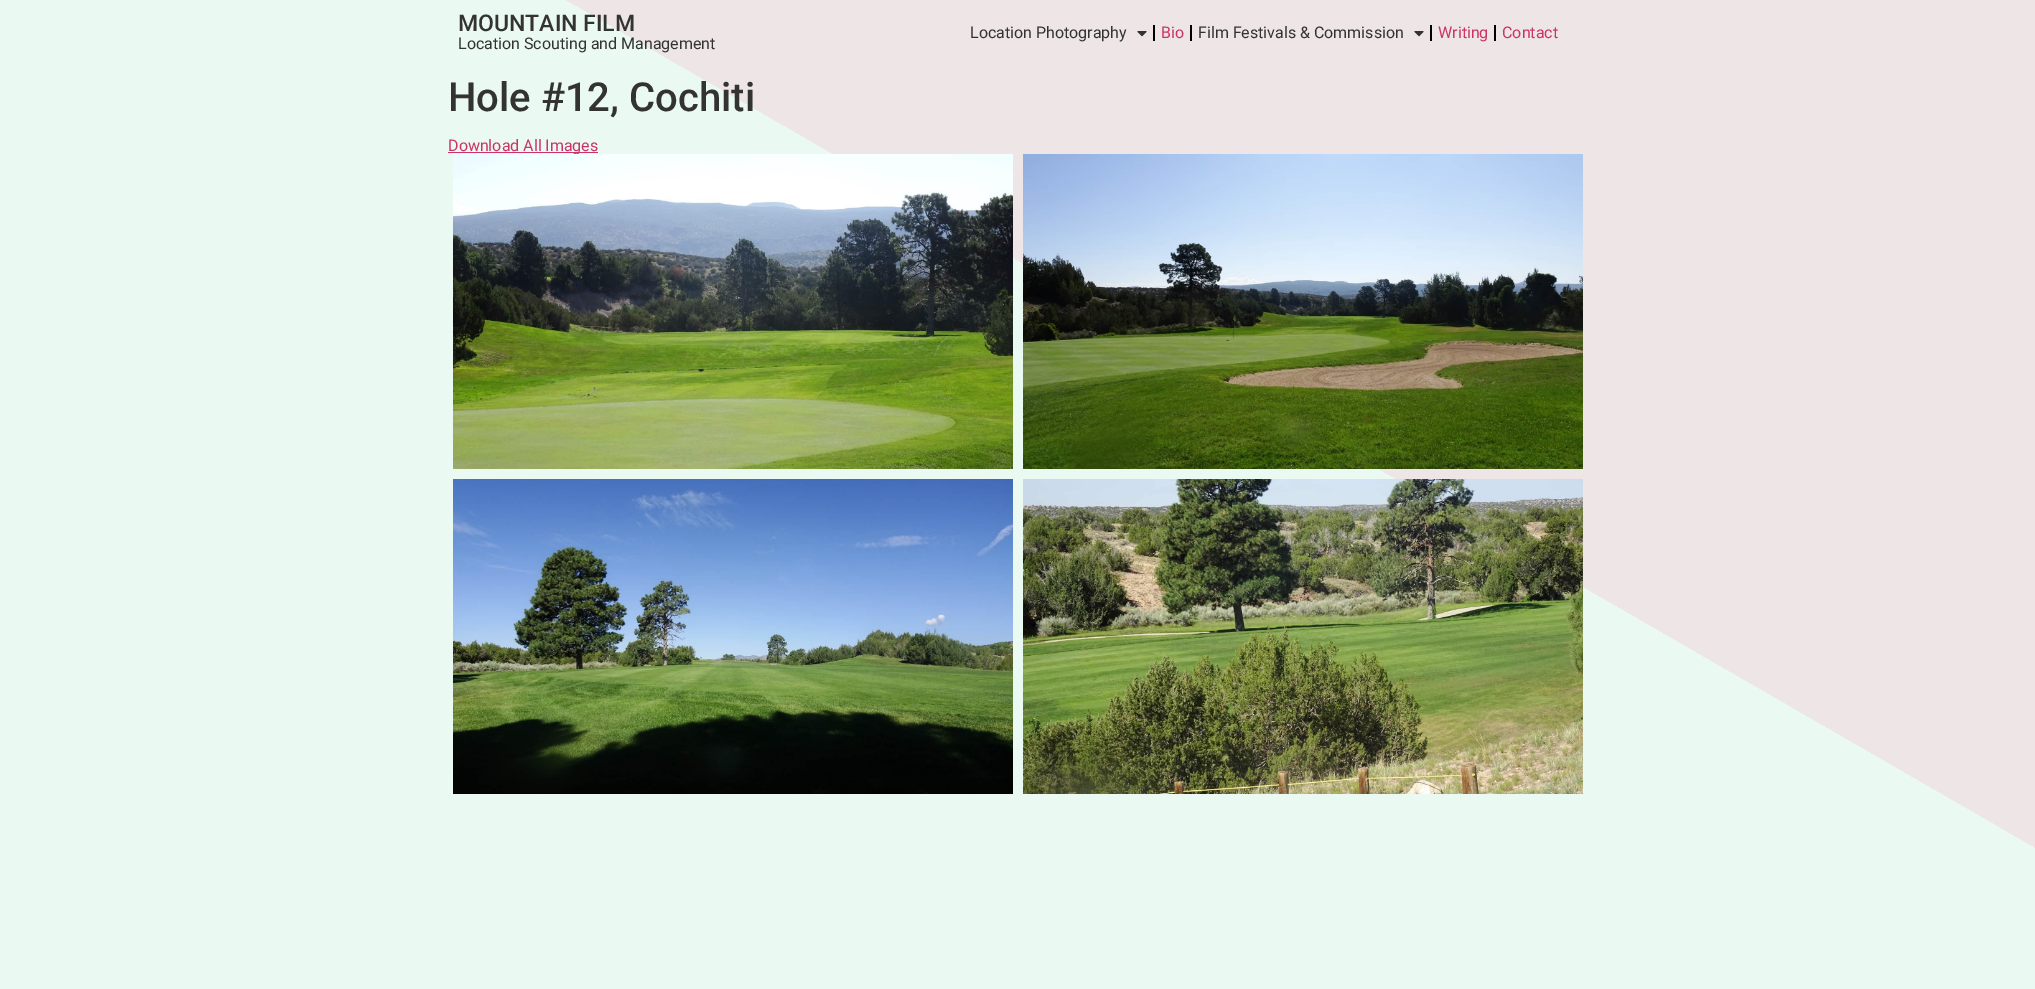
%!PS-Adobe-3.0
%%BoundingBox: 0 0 2035 989
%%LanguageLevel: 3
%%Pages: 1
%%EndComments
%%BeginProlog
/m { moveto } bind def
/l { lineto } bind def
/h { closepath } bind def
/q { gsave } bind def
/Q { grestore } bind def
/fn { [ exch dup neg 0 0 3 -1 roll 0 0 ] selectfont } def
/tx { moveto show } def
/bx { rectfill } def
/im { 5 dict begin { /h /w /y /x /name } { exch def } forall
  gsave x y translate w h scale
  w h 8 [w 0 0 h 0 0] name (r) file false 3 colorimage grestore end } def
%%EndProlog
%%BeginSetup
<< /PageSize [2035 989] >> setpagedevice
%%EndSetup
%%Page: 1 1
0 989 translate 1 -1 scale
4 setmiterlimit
1 setgray
0 0 2035 989 bx
q 0 0 m 2035 0 l 2035 989 l 0 989 l h clip newpath
<< /ShadingType 2 /ColorSpace /DeviceRGB /Coords [1673 -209 362 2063] /Extend [true true] /Function << /FunctionType 3 /Domain [0 1] /Functions [<< /FunctionType 2 /Domain [0 1] /C0 [0.933 0.902 0.902] /C1 [0.933 0.902 0.902] /N 1 >> << /FunctionType 2 /Domain [0 1] /C0 [0.918 0.98 0.949] /C1 [0.918 0.98 0.949] /N 1 >>] /Bounds [0.28] /Encode [0 1 0 1] >> >> shfill Q
/Roboto-Medium 23 fn
0.2 setgray
(MOUNTAIN FILM) 458 31 tx
/Roboto-Regular 16 fn
(Location Scouting and Management) 458 49 tx
(Location Photography) 970 38 tx
(image0.raw) 1137 31 10 6 im
0 setgray
1153 25 2 16 bx
0.8 0.2 0.4 setrgbcolor
(Bio) 1161 38 tx
0 setgray
1190 25 2 16 bx
0.2 setgray
(Film Festivals & Commission) 1198 38 tx
(image0.raw) 1414 31 10 6 im
0 setgray
1430 25 2 16 bx
0.8 0.2 0.4 setrgbcolor
(Writing) 1438 38 tx
0 setgray
1494 25 2 16 bx
0.8 0.2 0.4 setrgbcolor
(Contact) 1502 38 tx
/Roboto-Medium 40 fn
0.2 setgray
(Hole #12, Cochiti) 448 111 tx
0.8 0.2 0.4 setrgbcolor
448 152 150 1 bx
/Roboto-Regular 16 fn
(Download All Images) 448 151 tx
(image1.raw) 453 154 560 315 im
(image2.raw) 1023 154 560 315 im
(image3.raw) 453 479 560 315 im
(image4.raw) 1023 479 560 315 im
showpage
%%EOF
